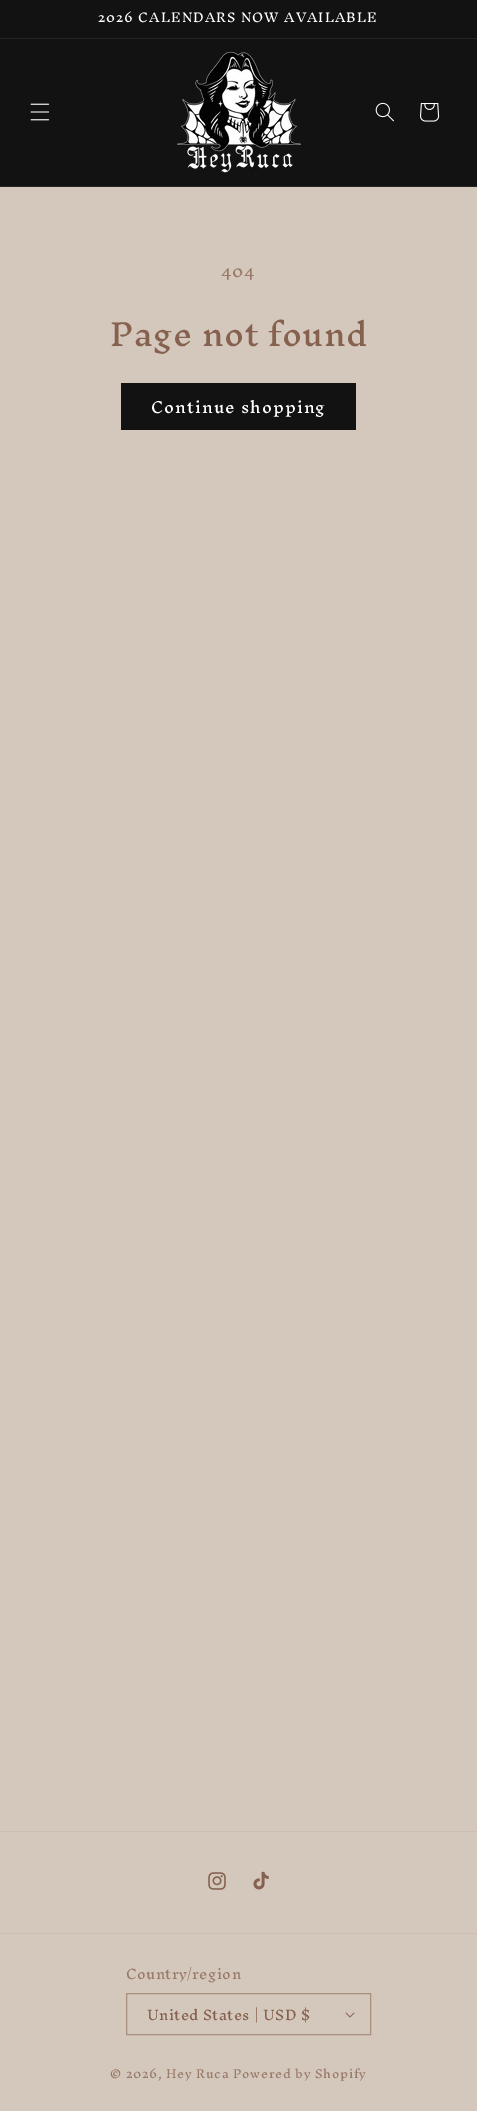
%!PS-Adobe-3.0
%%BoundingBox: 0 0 477 2111
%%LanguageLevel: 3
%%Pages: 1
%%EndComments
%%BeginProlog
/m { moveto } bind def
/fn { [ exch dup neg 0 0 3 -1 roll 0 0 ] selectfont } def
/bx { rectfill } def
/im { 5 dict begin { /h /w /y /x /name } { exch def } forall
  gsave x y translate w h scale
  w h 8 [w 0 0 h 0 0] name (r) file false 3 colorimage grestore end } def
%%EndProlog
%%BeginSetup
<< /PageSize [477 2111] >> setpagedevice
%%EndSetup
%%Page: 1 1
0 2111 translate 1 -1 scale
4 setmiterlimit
0.831 0.78 0.737 setrgbcolor
0 0 477 2111 bx
0.071 setgray
0 0 477 38 bx
0.145 setgray
0 38 477 1 bx
/InknutAntiqua-Regular 12 fn
1 setgray
98 22 m 1 0 (2026 CALENDARS NOW AVAILABLE) ashow
0.071 setgray
0 39 477 147 bx
0.145 setgray
0 186 477 1 bx
(image0.raw) 30 103 20 18 im
(image1.raw) 177 51 124 125 im
(image2.raw) 375 102 19 20 im
(image3.raw) 420 103 20 19 im
/InknutAntiqua-Regular 15 fn
0.604 0.482 0.416 setrgbcolor
221 277 m 0.6 0 (404) ashow
/InknutAntiqua-Regular 30 fn
0.525 0.38 0.31 setrgbcolor
110 346 m 0.6 0 (Page not found) ashow
0.071 setgray
121 383 235 47 bx
/InknutAntiqua-Regular 15 fn
1 setgray
151 413 m 1 0 (Continue shopping) ashow
0.808 0.749 0.702 setrgbcolor
0 1831 477 1 bx
(image4.raw) 208 1872 18 18 im
(image5.raw) 253 1871 16 19 im
0 1933 477 1 bx
/InknutAntiqua-Regular 13 fn
0.604 0.482 0.416 setrgbcolor
126 1979 m 0.4 0 (Country/region) ashow
(image6.raw) 345 2012 10 6 im
0.663 0.561 0.502 setrgbcolor
126.5 1993.5 244 41 rectstroke
0.525 0.38 0.31 setrgbcolor
147 2020 m 0.4 0 (United States | USD $) ashow
/InknutAntiqua-Regular 11 fn
0.604 0.482 0.416 setrgbcolor
110 2078 m 0.7 0 (© 2026, Hey Ruca Powered by Shopify) ashow
showpage
%%EOF
